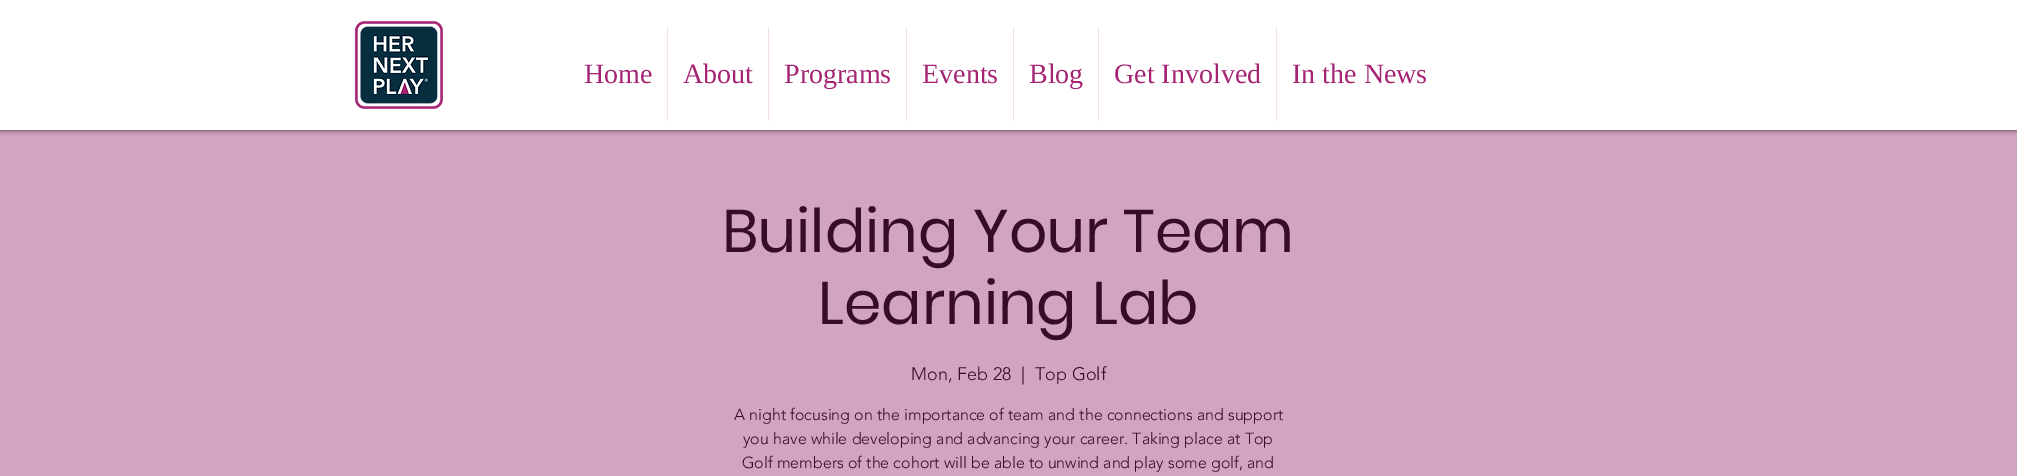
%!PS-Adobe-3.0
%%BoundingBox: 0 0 2017 476
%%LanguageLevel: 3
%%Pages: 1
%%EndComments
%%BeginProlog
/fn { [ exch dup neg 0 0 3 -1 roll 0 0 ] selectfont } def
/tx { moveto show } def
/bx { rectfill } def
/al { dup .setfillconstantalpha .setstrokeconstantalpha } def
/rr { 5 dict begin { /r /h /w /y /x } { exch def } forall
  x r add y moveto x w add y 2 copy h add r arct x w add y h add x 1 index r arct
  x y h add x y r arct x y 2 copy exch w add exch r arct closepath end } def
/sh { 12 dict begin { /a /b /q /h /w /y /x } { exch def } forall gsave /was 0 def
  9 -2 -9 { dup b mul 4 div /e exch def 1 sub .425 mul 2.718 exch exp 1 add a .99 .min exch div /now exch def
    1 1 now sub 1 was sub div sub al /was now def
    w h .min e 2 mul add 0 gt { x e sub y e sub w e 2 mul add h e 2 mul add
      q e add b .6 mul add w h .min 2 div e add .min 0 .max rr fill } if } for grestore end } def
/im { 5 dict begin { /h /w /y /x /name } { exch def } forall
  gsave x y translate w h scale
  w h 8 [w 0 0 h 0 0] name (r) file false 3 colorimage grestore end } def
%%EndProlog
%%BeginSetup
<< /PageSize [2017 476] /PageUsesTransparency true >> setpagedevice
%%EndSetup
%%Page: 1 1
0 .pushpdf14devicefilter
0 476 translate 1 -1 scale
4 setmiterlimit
0.827 0.639 0.765 setrgbcolor
0 0 2017 476 bx
0 setgray
0 0 2017 130 0 2.5 0.7 sh
1 setgray
0 0 2017 130 bx
(image0.raw) 354 20 89 89 im
/LiberationSerif-Regular 28 fn
0.643 0.137 0.451 setrgbcolor
(Home) 584 83 tx
0.957 0.871 0.922 setrgbcolor
667 27 1 94 bx
0.643 0.137 0.451 setrgbcolor
(About) 683 83 tx
0.957 0.871 0.922 setrgbcolor
768 27 1 94 bx
0.643 0.137 0.451 setrgbcolor
(Programs) 784 83 tx
0.957 0.871 0.922 setrgbcolor
906 27 1 94 bx
0.643 0.137 0.451 setrgbcolor
(Events) 922 83 tx
0.957 0.871 0.922 setrgbcolor
1013 27 1 94 bx
0.643 0.137 0.451 setrgbcolor
(Blog) 1029 83 tx
0.957 0.871 0.922 setrgbcolor
1098 27 1 94 bx
0.643 0.137 0.451 setrgbcolor
(Get Involved) 1114 83 tx
0.957 0.871 0.922 setrgbcolor
1276 27 1 94 bx
0.643 0.137 0.451 setrgbcolor
(In the News) 1292 83 tx
/Poppins-Regular 60 fn
0.216 0.047 0.149 setrgbcolor
(Building Your Team) 722 252 tx
(Learning Lab) 818 324 tx
/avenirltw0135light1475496-Light 18 fn
(Mon, Feb 28) 911 380 tx
(|) 1021 380 tx
(Top Golf) 1035 380 tx
/avenirltw0135light1475496-Light 16 fn
(A night focusing on the importance of team and the connections and support) 734 420 tx
(you have while developing and advancing your career. Taking place at Top) 743 444 tx
(Golf members of the cohort will be able to unwind and play some golf, and) 742 468 tx
.poppdf14devicefilter showpage
%%EOF
